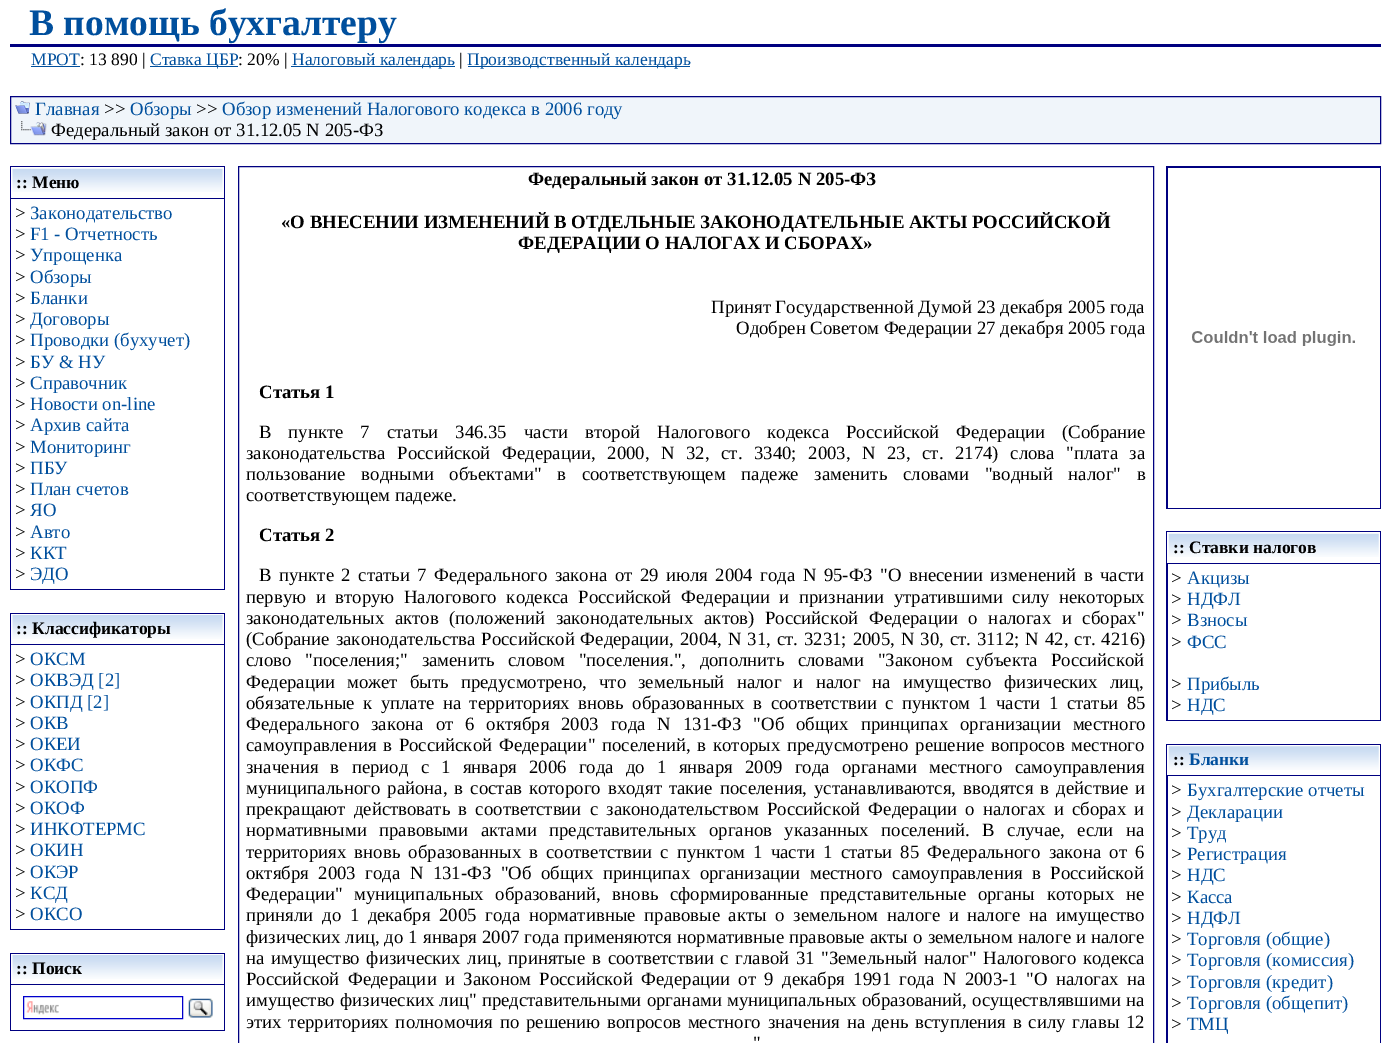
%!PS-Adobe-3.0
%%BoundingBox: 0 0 1391 1043
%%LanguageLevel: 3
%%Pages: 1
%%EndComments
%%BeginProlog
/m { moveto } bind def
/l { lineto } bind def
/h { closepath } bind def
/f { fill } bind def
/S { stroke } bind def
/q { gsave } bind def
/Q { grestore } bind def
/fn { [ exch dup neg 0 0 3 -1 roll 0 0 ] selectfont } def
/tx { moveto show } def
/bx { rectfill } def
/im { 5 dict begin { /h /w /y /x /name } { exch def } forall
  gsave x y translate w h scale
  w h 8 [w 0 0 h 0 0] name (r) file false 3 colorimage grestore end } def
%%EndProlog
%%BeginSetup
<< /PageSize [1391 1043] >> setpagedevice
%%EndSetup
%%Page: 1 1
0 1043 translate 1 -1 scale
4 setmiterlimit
1 setgray
0 0 1391 1043 bx
0 0 0.502 setrgbcolor
10 44 1371 3 bx
/LiberationSerif-Bold 37.5 fn
0 0.31 0.616 setrgbcolor
(В помощь бухгалтеру) 29 35 tx
/LiberationSerif-Regular 17.5 fn
(МРОТ) 31 65 tx
31 66 49 1 bx
0 setgray
(: 13 890 |) 80 65 tx
0 0.31 0.616 setrgbcolor
150 66 88 1 bx
(Ставка ЦБР) 150 65 tx
0 setgray
(: 20% |) 238 65 tx
0 0.31 0.616 setrgbcolor
291 66 164 1 bx
(Налоговый календарь) 292 65 tx
0 setgray
(|) 459 65 tx
0 0.31 0.616 setrgbcolor
468 66 222 1 bx
(Производственный календарь) 467 65 tx
0.941 0.961 0.98 setrgbcolor
10.5 96.5 m 1380.5 96.5 l 1380.5 143.5 l 10.5 143.5 l h q f Q
0 0 0.502 setrgbcolor
S
(image0.raw) 15 101 15 13 im
/LiberationSerif-Regular 18.75 fn
0 0.31 0.616 setrgbcolor
(Главная) 35 115 tx
0 setgray
(>>) 104 115 tx
0 0.31 0.616 setrgbcolor
(Обзоры) 130 115 tx
0 setgray
(>>) 196 115 tx
0 0.31 0.616 setrgbcolor
(Обзор изменений Налогового кодекса в 2006 году) 222 115 tx
(image1.raw) 21 121 26 15 im
0 setgray
(Федеральный закон от 31.12.05 N 205-ФЗ) 51 136 tx
0 0 0.502 setrgbcolor
10 166 215 1 bx
224 166 1 32 bx
10 166 1 32 bx
(image2.raw) 12 168 211 24 im
/LiberationSerif-Bold 17.5 fn
0 setgray
(:: Меню) 16 188 tx
0 0 0.502 setrgbcolor
10 198 215 392 bx
1 setgray
11 199 213 390 bx
/LiberationSerif-Regular 18.75 fn
0 setgray
(>) 15 219 tx
0 0.31 0.616 setrgbcolor
(Законодательство) 30 219 tx
0 setgray
(>) 15 240 tx
0 0.31 0.616 setrgbcolor
(F1 - Отчетность) 30 240 tx
0 setgray
(>) 15 261 tx
0 0.31 0.616 setrgbcolor
(Упрощенка) 30 261 tx
0 setgray
(>) 15 283 tx
0 0.31 0.616 setrgbcolor
(Обзоры) 30 283 tx
0 setgray
(>) 15 304 tx
0 0.31 0.616 setrgbcolor
(Бланки) 30 304 tx
0 setgray
(>) 15 325 tx
0 0.31 0.616 setrgbcolor
(Договоры) 30 325 tx
0 setgray
(>) 15 346 tx
0 0.31 0.616 setrgbcolor
(Проводки \(бухучет\)) 30 346 tx
0 setgray
(>) 15 368 tx
0 0.31 0.616 setrgbcolor
(БУ & НУ) 30 368 tx
0 setgray
(>) 15 389 tx
0 0.31 0.616 setrgbcolor
(Справочник) 30 389 tx
0 setgray
(>) 15 410 tx
0 0.31 0.616 setrgbcolor
(Новости on-line) 30 410 tx
0 setgray
(>) 15 431 tx
0 0.31 0.616 setrgbcolor
(Архив сайта) 30 431 tx
0 setgray
(>) 15 453 tx
0 0.31 0.616 setrgbcolor
(Мониторинг) 30 453 tx
0 setgray
(>) 15 474 tx
0 0.31 0.616 setrgbcolor
(ПБУ) 30 474 tx
0 setgray
(>) 15 495 tx
0 0.31 0.616 setrgbcolor
(План счетов) 30 495 tx
0 setgray
(>) 15 516 tx
0 0.31 0.616 setrgbcolor
(ЯО) 30 516 tx
0 setgray
(>) 15 538 tx
0 0.31 0.616 setrgbcolor
(Авто) 30 538 tx
0 setgray
(>) 15 559 tx
0 0.31 0.616 setrgbcolor
(ККТ) 30 559 tx
0 setgray
(>) 15 580 tx
0 0.31 0.616 setrgbcolor
(ЭДО) 30 580 tx
0 0 0.502 setrgbcolor
10 613 215 1 bx
224 613 1 31 bx
10 613 1 31 bx
(image3.raw) 12 615 211 24 im
/LiberationSerif-Bold 17.5 fn
0 setgray
(:: Классификаторы) 16 634 tx
0 0 0.502 setrgbcolor
10 644 215 286 bx
1 setgray
11 645 213 284 bx
/LiberationSerif-Regular 18.75 fn
0 setgray
(>) 15 665 tx
0 0.31 0.616 setrgbcolor
(ОКСМ) 30 665 tx
0 setgray
(>) 15 686 tx
0 0.31 0.616 setrgbcolor
(ОКВЭД [2]) 30 686 tx
0 setgray
(>) 15 708 tx
0 0.31 0.616 setrgbcolor
(ОКПД [2]) 30 708 tx
0 setgray
(>) 15 729 tx
0 0.31 0.616 setrgbcolor
(ОКВ) 30 729 tx
0 setgray
(>) 15 750 tx
0 0.31 0.616 setrgbcolor
(ОКЕИ) 30 750 tx
0 setgray
(>) 15 771 tx
0 0.31 0.616 setrgbcolor
(ОКФС) 30 771 tx
0 setgray
(>) 15 793 tx
0 0.31 0.616 setrgbcolor
(ОКОПФ) 30 793 tx
0 setgray
(>) 15 814 tx
0 0.31 0.616 setrgbcolor
(ОКОФ) 30 814 tx
0 setgray
(>) 15 835 tx
0 0.31 0.616 setrgbcolor
(ИНКОТЕРМС) 30 835 tx
0 setgray
(>) 15 856 tx
0 0.31 0.616 setrgbcolor
(ОКИН) 30 856 tx
0 setgray
(>) 15 878 tx
0 0.31 0.616 setrgbcolor
(ОКЭР) 30 878 tx
0 setgray
(>) 15 899 tx
0 0.31 0.616 setrgbcolor
(КСД) 30 899 tx
0 setgray
(>) 15 920 tx
0 0.31 0.616 setrgbcolor
(ОКСО) 30 920 tx
0 0 0.502 setrgbcolor
10 953 215 1 bx
224 953 1 31 bx
10 953 1 31 bx
(image4.raw) 12 955 211 24 im
/LiberationSerif-Bold 17.5 fn
0 setgray
(:: Поиск) 16 974 tx
0 0 0.502 setrgbcolor
10 984 215 47 bx
1 setgray
11 985 213 45 bx
(image5.raw) 26 1001 33 14 im
0 0 0.8 setrgbcolor
23.5 996.5 159 22 rectstroke
(image6.raw) 188 998 25 20 im
0 0 0.502 setrgbcolor
238.5 166.5 915 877 rectstroke
/LiberationSerif-Bold 18.75 fn
0 setgray
(Федеральный закон от 31.12.05 N 205-ФЗ) 528 185 tx
(«О ВНЕСЕНИИ ИЗМЕНЕНИЙ В ОТДЕЛЬНЫЕ ЗАКОНОДАТЕЛЬНЫЕ АКТЫ РОССИЙСКОЙ) 281 228 tx
(ФЕДЕРАЦИИ О НАЛОГАХ И СБОРАХ») 518 249 tx
/LiberationSerif-Regular 18.75 fn
(Принят Государственной Думой 23 декабря 2005 года) 711 313 tx
(Одобрен Советом Федерации 27 декабря 2005 года) 736 334 tx
/LiberationSerif-Bold 18.75 fn
(Статья 1) 259 398 tx
/LiberationSerif-Regular 18.75 fn
259 438 m 12.25 0 32 (В пункте 7 статьи 346.35 части второй Налогового кодекса Российской Федерации \(Собрание) widthshow
246 459 m 6.9 0 32 (законодательства Российской Федерации, 2000, N 32, ст. 3340; 2003, N 23, ст. 2174\) слова "плата за) widthshow
246 480 m 11 0 32 (пользование водными объектами" в соответствующем падеже заменить словами "водный налог" в) widthshow
(соответствующем падеже.) 246 501 tx
/LiberationSerif-Bold 18.75 fn
(Статья 2) 259 541 tx
/LiberationSerif-Regular 18.75 fn
259 581 m 2.75 0 32 (В пункте 2 статьи 7 Федерального закона от 29 июля 2004 года N 95-ФЗ "О внесении изменений в части) widthshow
246 603 m 4.9 0 32 (первую и вторую Налогового кодекса Российской Федерации и признании утратившими силу некоторых) widthshow
246 624 m 6 0 32 (законодательных актов \(положений законодательных актов\) Российской Федерации о налогах и сборах") widthshow
246 645 m 1.25 0 32 (\(Собрание законодательства Российской Федерации, 2004, N 31, ст. 3231; 2005, N 30, ст. 3112; N 42, ст. 4216\)) widthshow
246 666 m 9 0 32 (слово "поселения;" заменить словом "поселения.", дополнить словами "Законом субъекта Российской) widthshow
246 688 m 7.4 0 32 (Федерации может быть предусмотрено, что земельный налог и налог на имущество физических лиц,) widthshow
246 709 m 3.75 0 32 (обязательные к уплате на территориях вновь образованных в соответствии с пунктом 1 части 1 статьи 85) widthshow
246 730 m 7.25 0 32 (Федерального закона от 6 октября 2003 года N 131-ФЗ "Об общих принципах организации местного) widthshow
246 751 m 2.1 0 32 (самоуправления в Российской Федерации" поселений, в которых предусмотрено решение вопросов местного) widthshow
246 773 m 7.6 0 32 (значения в период с 1 января 2006 года до 1 января 2009 года органами местного самоуправления) widthshow
246 794 m 2.4 0 32 (муниципального района, в состав которого входят такие поселения, устанавливаются, вводятся в действие и) widthshow
246 815 m 3.5 0 32 (прекращают действовать в соответствии с законодательством Российской Федерации о налогах и сборах и) widthshow
246 836 m 7.75 0 32 (нормативными правовыми актами представительных органов указанных поселений. В случае, если на) widthshow
246 858 m 3.5 0 32 (территориях вновь образованных в соответствии с пунктом 1 части 1 статьи 85 Федерального закона от 6) widthshow
246 879 m 4.75 0 32 (октября 2003 года N 131-ФЗ "Об общих принципах организации местного самоуправления в Российской) widthshow
246 900 m 7 0 32 (Федерации" муниципальных образований, вновь сформированные представительные органы которых не) widthshow
246 921 m 3.9 0 32 (приняли до 1 декабря 2005 года нормативные правовые акты о земельном налоге и налоге на имущество) widthshow
246 943 m 0.4 0 32 (физических лиц, до 1 января 2007 года применяются нормативные правовые акты о земельном налоге и налоге) widthshow
246 964 m 2 0 32 (на имущество физических лиц, принятые в соответствии с главой 31 "Земельный налог" Налогового кодекса) widthshow
246 985 m 3.75 0 32 (Российской Федерации и Законом Российской Федерации от 9 декабря 1991 года N 2003-1 "О налогах на) widthshow
246 1006 m 0.5 0 32 (имущество физических лиц" представительными органами муниципальных образований, осуществлявшими на) widthshow
246 1028 m 2.1 0 32 (этих территориях полномочия по решению вопросов местного значения на день вступления в силу главы 12) widthshow
753 1049 m 7.25 0 32 (") widthshow
0 0 0.502 setrgbcolor
1166 166 215 343 bx
1 setgray
1168 168 212 340 bx
(image7.raw) 1192 331 163 15 im
0 0 0.502 setrgbcolor
1166 531 215 1 bx
1380 531 1 32 bx
1166 531 1 32 bx
(image8.raw) 1168 533 211 24 im
/LiberationSerif-Bold 17.5 fn
0 setgray
(:: Ставки налогов) 1173 553 tx
0 0 0.502 setrgbcolor
1166 563 215 158 bx
1 setgray
1168 564 212 156 bx
/LiberationSerif-Regular 18.75 fn
0 setgray
(>) 1171 584 tx
0 0.31 0.616 setrgbcolor
(Акцизы) 1187 584 tx
0 setgray
(>) 1171 605 tx
0 0.31 0.616 setrgbcolor
(НДФЛ) 1187 605 tx
0 setgray
(>) 1171 626 tx
0 0.31 0.616 setrgbcolor
(Взносы) 1187 626 tx
0 setgray
(>) 1171 648 tx
0 0.31 0.616 setrgbcolor
(ФСС) 1187 648 tx
0 setgray
(>) 1171 690 tx
0 0.31 0.616 setrgbcolor
(Прибыль) 1187 690 tx
0 setgray
(>) 1171 711 tx
0 0.31 0.616 setrgbcolor
(НДС) 1187 711 tx
0 0 0.502 setrgbcolor
1166 744 215 1 bx
1380 744 1 31 bx
1166 744 1 31 bx
(image9.raw) 1168 746 211 24 im
/LiberationSerif-Bold 17.5 fn
0 setgray
(::) 1173 765 tx
0 0.31 0.616 setrgbcolor
(Бланки) 1189 765 tx
0 0 0.502 setrgbcolor
1166 775 215 268 bx
1 setgray
1168 776 212 267 bx
/LiberationSerif-Regular 18.75 fn
0 setgray
(>) 1171 796 tx
0 0.31 0.616 setrgbcolor
(Бухгалтерские отчеты) 1187 796 tx
0 setgray
(>) 1171 818 tx
0 0.31 0.616 setrgbcolor
(Декларации) 1187 818 tx
0 setgray
(>) 1171 839 tx
0 0.31 0.616 setrgbcolor
(Труд) 1187 839 tx
0 setgray
(>) 1171 860 tx
0 0.31 0.616 setrgbcolor
(Регистрация) 1187 860 tx
0 setgray
(>) 1171 881 tx
0 0.31 0.616 setrgbcolor
(НДС) 1187 881 tx
0 setgray
(>) 1171 903 tx
0 0.31 0.616 setrgbcolor
(Касса) 1187 903 tx
0 setgray
(>) 1171 924 tx
0 0.31 0.616 setrgbcolor
(НДФЛ) 1187 924 tx
0 setgray
(>) 1171 945 tx
0 0.31 0.616 setrgbcolor
(Торговля \(общие\)) 1187 945 tx
0 setgray
(>) 1171 966 tx
0 0.31 0.616 setrgbcolor
(Торговля \(комиссия\)) 1187 966 tx
0 setgray
(>) 1171 988 tx
0 0.31 0.616 setrgbcolor
(Торговля \(кредит\)) 1187 988 tx
0 setgray
(>) 1171 1009 tx
0 0.31 0.616 setrgbcolor
(Торговля \(общепит\)) 1187 1009 tx
0 setgray
(>) 1171 1030 tx
0 0.31 0.616 setrgbcolor
(ТМЦ) 1187 1030 tx
showpage
%%EOF
